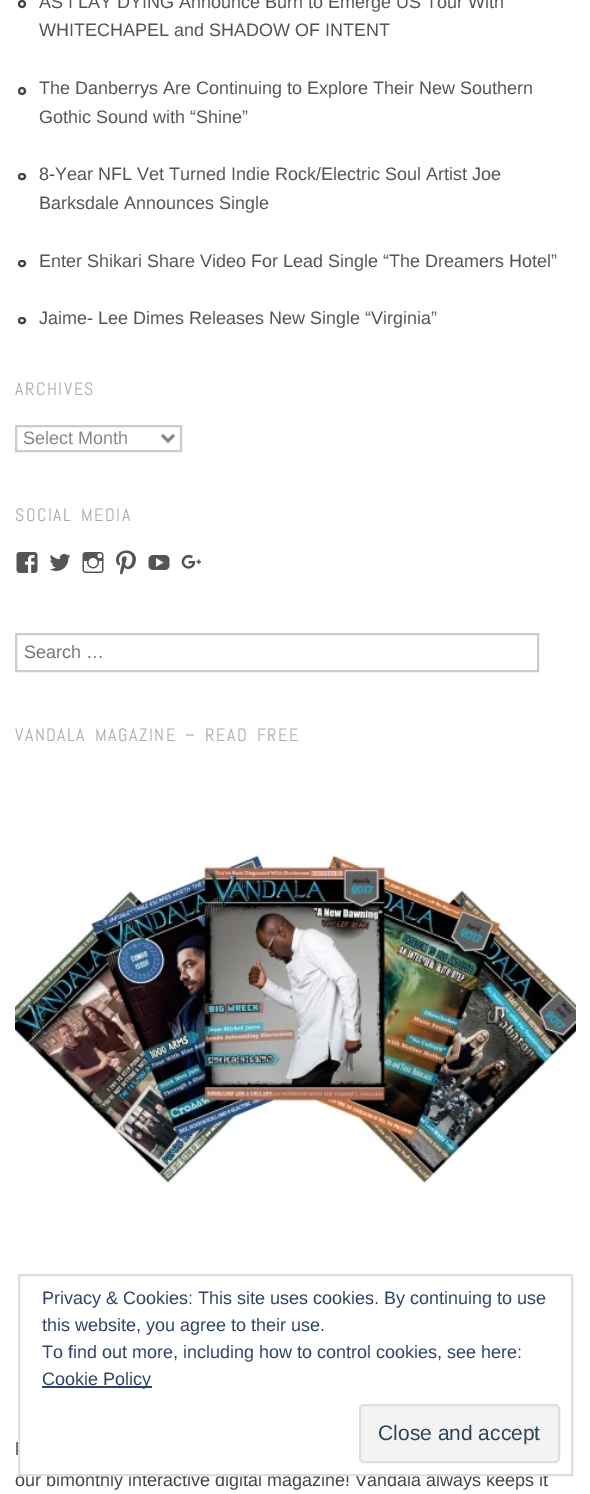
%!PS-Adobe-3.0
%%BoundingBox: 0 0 590 1494
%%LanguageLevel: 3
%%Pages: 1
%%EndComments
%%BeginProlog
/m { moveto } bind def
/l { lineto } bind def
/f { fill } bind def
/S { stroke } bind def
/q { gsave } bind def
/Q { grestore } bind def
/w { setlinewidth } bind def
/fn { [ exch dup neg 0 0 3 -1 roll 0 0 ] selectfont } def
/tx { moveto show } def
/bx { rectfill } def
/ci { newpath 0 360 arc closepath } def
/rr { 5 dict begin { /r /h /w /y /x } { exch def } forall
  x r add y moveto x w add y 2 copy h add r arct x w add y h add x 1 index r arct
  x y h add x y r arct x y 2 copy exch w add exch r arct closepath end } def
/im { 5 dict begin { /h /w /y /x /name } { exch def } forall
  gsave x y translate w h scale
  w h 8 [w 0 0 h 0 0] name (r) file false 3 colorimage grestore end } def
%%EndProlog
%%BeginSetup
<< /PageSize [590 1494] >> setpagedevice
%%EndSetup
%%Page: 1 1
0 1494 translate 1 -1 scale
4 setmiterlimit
1 setgray
0 0 590 1494 bx
0.267 setgray
2 w
22 4 3 ci S
/LiberationSans-Regular 18 fn
0.333 setgray
(AS I LAY DYING Announce Burn to Emerge US Tour With) 39 8 tx
(WHITECHAPEL and SHADOW OF INTENT) 39 36 tx
0.267 setgray
22 91 3 ci S
0.333 setgray
(The Danberrys Are Continuing to Explore Their New Southern) 39 94 tx
(Gothic Sound with “Shine”) 39 123 tx
0.267 setgray
19 174 6 5 2.5 rr S
0.333 setgray
(8-Year NFL Vet Turned Indie Rock/Electric Soul Artist Joe) 39 180 tx
(Barksdale Announces Single) 39 209 tx
0.267 setgray
19 261 6 5 2.5 rr S
0.333 setgray
(Enter Shikari Share Video For Lead Single “The Dreamers Hotel”) 39 267 tx
0.267 setgray
19 318 6 5 2.5 rr S
0.333 setgray
(Jaime- Lee Dimes Releases New Single “Virginia”) 39 324 tx
/Abel-Regular 18 fn
0.667 setgray
15 395 m 1.5 0 (ARCHIVES) ashow
0.8 setgray
16 426 165 25 rectstroke
0.533 setgray
3 w
162 435 m 168 441 l 174 435 l S
/LiberationSans-Regular 18 fn
(Select Month) 23 444 tx
/Abel-Regular 18 fn
0.667 setgray
15 521 m 3 0 32 1.5 0 (SOCIAL MEDIA) awidthshow
(image0.raw) 16 552 22 21 im
(image1.raw) 49 553 22 18 im
(image2.raw) 82 552 22 21 im
(image3.raw) 116 550 20 25 im
(image4.raw) 148 555 22 15 im
(image5.raw) 181 554 20 15 im
0.8 setgray
2 w
16 634 522 37 rectstroke
/LiberationSans-Regular 18 fn
0.459 setgray
(Search …) 24 658 tx
/Abel-Regular 18 fn
0.667 setgray
15 741 m 3 0 32 1.5 0 (VANDALA MAGAZINE – READ FREE) awidthshow
(image6.raw) 15 854 561 331 im
/LiberationSans-Regular 18 fn
0.267 setgray
(l) 15 1455 tx
(our bimonthly interactive digital magazine! Vandala always keeps it) 15 1486 tx
1 setgray
47 1472 496 2 bx
0.871 setgray
19 1275 553 200 rectstroke
0.18 0.267 0.404 setrgbcolor
(Privacy & Cookies: This site uses cookies. By continuing to use) 42 1304 tx
(this website, you agree to their use.) 42 1331 tx
(To find out more, including how to control cookies, see here:) 42 1358 tx
42 1386 110 2 bx
(Cookie Policy) 42 1385 tx
0.953 setgray
360 1405 199 57 4 rr q f Q
0.871 setgray
S
/LiberationSans-Regular 21 fn
0.18 0.267 0.325 setrgbcolor
(Close and accept) 378 1440 tx
showpage
%%EOF
